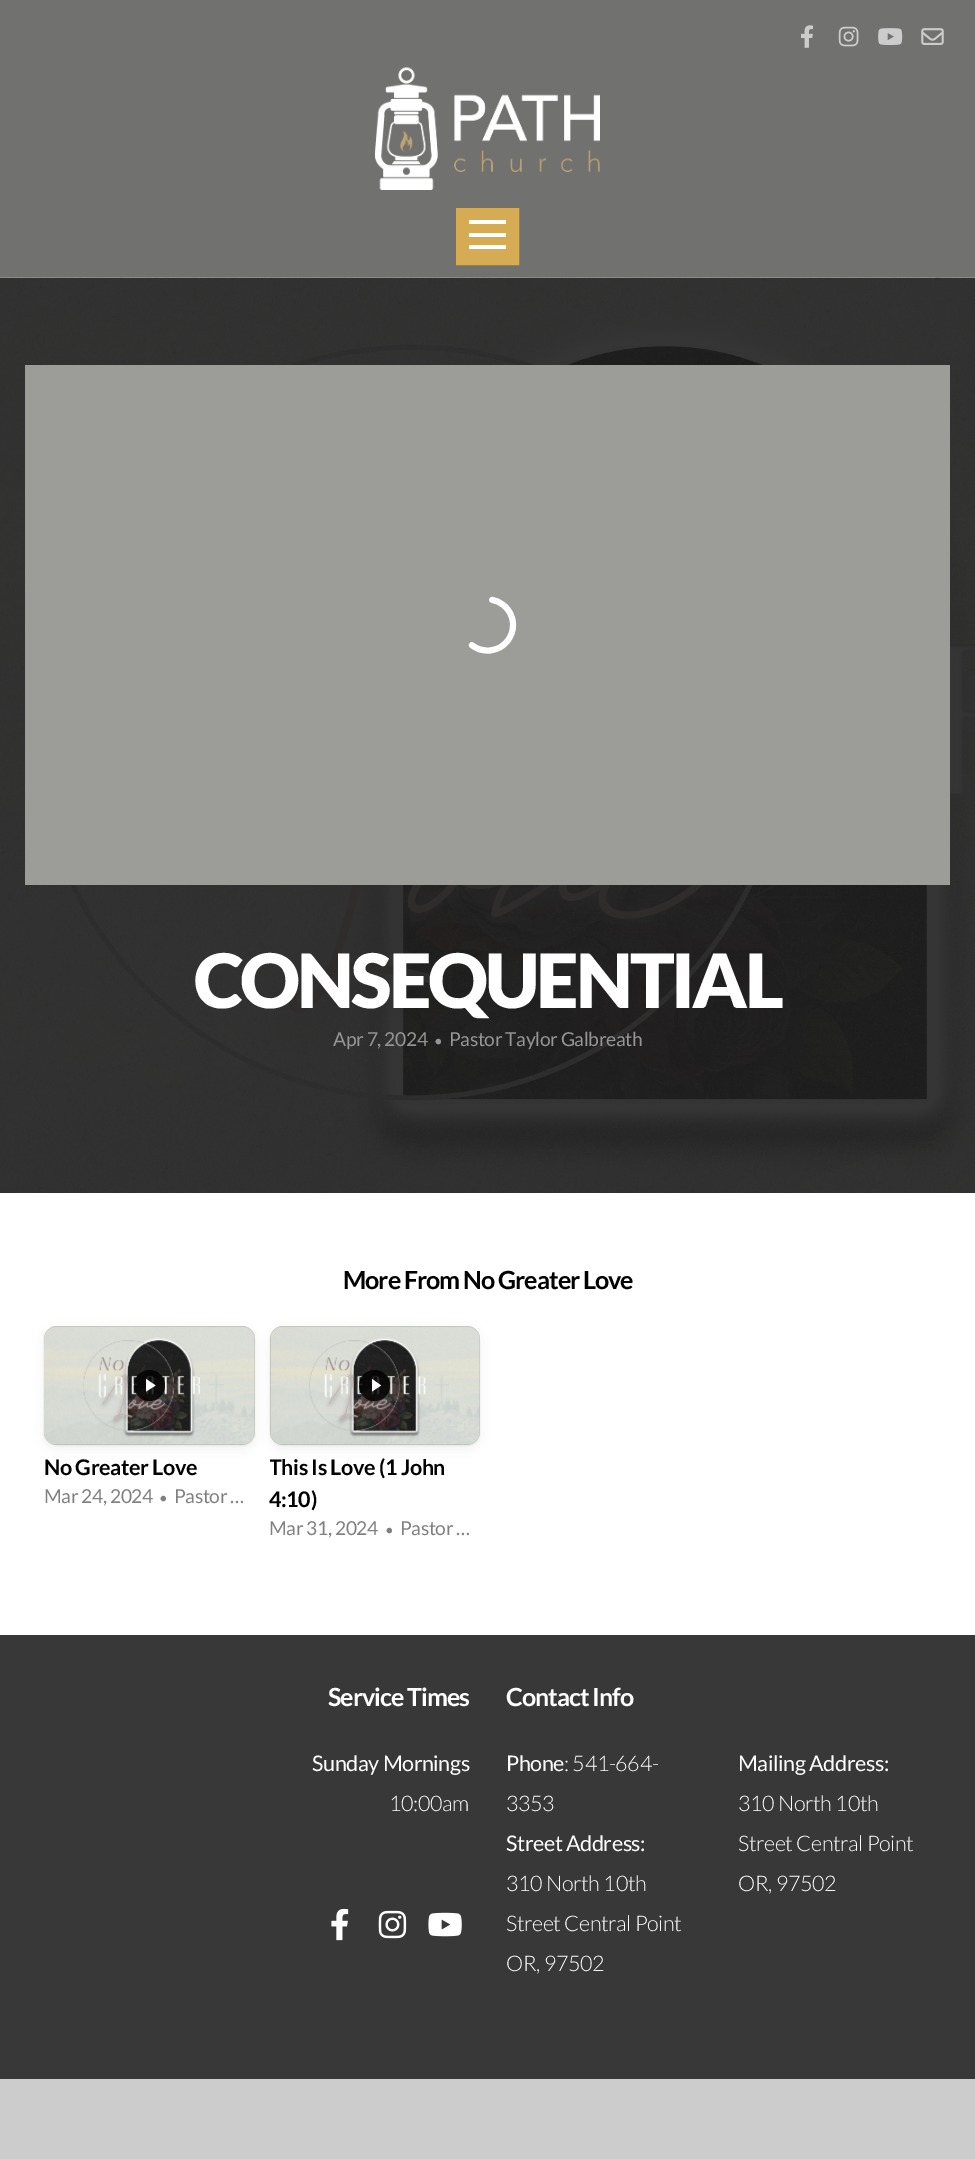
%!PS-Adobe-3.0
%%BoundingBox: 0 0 975 2159
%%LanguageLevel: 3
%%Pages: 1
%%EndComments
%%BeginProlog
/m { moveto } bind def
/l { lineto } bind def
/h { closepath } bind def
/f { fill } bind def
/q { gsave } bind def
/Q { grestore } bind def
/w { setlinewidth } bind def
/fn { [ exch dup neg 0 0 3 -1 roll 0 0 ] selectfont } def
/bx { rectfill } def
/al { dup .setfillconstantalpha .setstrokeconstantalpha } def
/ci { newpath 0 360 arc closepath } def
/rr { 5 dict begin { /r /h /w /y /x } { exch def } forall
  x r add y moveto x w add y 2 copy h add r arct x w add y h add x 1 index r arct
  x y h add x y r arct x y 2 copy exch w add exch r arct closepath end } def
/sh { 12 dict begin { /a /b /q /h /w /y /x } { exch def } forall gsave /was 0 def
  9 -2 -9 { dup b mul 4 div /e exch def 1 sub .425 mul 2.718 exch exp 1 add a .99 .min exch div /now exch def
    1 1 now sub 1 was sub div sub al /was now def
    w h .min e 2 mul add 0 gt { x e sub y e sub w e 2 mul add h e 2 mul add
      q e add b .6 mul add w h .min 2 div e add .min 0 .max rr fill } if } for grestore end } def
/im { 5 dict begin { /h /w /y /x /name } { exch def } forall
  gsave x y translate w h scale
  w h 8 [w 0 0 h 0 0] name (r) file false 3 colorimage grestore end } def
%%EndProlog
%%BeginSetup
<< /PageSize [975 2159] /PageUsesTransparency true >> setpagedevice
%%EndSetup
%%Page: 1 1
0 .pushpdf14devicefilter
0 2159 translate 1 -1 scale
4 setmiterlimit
0.8 setgray
0 0 975 2159 bx
0.443 0.443 0.435 setrgbcolor
0 0 975 278 bx
(image0.raw) 801 25 13 23 im
(image1.raw) 838 26 21 21 im
(image2.raw) 878 28 25 17 im
(image3.raw) 921 28 23 17 im
(image4.raw) 375 67 225 123 im
0.835 0.671 0.325 setrgbcolor
13 w
462.5 214.5 50 44 rectstroke
469 224 37 28 bx
1 setgray
469 220 37 4 bx
469 233 37 4 bx
469 245 37 4 bx
(image5.raw) 0 277 975 916 im
(image6.raw) 25 365 925 520 im
/Lato-Black 75 fn
194 1008 m -3 0 (CONSEQUENTIAL) ashow
/Lato-Regular 19.25 fn
0.584 setgray
333 1046 m -0.4 0 (Apr 7, 2024) ashow
/Lato-Regular 15 fn
434 1046 m -0.4 0 (•) ashow
/Lato-Regular 19.25 fn
449 1046 m -0.4 0 (Pastor Taylor Galbreath) ashow
1 setgray
0 1193 975 442 bx
/Lato-Bold 25 fn
0 setgray
343 1289 m -1 0 (More From No Greater Love) ashow
44 1328 211 118 13 1 0.04 sh
44 1330 211 119 13 6 0.06 sh
0.612 0.616 0.596 setrgbcolor
44 1326 211 119 13 rr f
(image7.raw) 43 1326 212 120 im
0.8 al
0 setgray
149.5 1385.5 15.5 ci f
1 al
1 setgray
146 1391.5 m 146 1379 l 155.5 1385.5 l h f
/Lato-Bold 21.5 fn
0 setgray
44 1475 m -0.4 0 (No Greater Love) ashow
/Lato-Regular 19.25 fn
0.502 setgray
44 1503 m -0.4 0 (Mar 24, 2024) ashow
/Lato-Regular 15 fn
159 1503 m -0.4 0 (•) ashow
/Lato-Regular 19.25 fn
174 1503 m -0.4 0 (Pastor …) ashow
0 setgray
270 1328 210 118 13 1 0.04 sh
270 1330 210 119 13 6 0.06 sh
0.612 0.616 0.596 setrgbcolor
270 1326 210 119 13 rr f
(image8.raw) 269 1326 211 120 im
0.8 al
0 setgray
374.5 1385.5 15.5 ci f
1 al
1 setgray
372 1391.5 m 372 1379 l 381 1385.5 l h f
q
270 1451 210 64 rectclip
/Lato-Bold 21.5 fn
0 setgray
269 1475 m -0.4 0 (This Is Love \(1 John) ashow
Q
/Lato-Bold 21.5 fn
0 setgray
269 1507 m -0.4 0 (4:10\)) ashow
/Lato-Regular 19.25 fn
0.502 setgray
269 1535 m -0.4 0 (Mar 31, 2024) ashow
/Lato-Regular 15 fn
385 1535 m -0.4 0 (•) ashow
/Lato-Regular 19.25 fn
400 1535 m -0.4 0 (Pastor …) ashow
0.22 setgray
0 1635 975 444 bx
/Lato-Bold 25 fn
1 setgray
328 1706 m -1 0 (Service Times) ashow
/Lato-Regular 21.5 fn
312 1771 m -0.4 0 (Sunday Mornings) ashow
/Lato-Light 21.5 fn
389 1811 m -0.4 0 (10:00am) ashow
(image9.raw) 331 1908 18 33 im
(image10.raw) 378 1910 29 29 im
(image11.raw) 428 1912 34 25 im
/Lato-Bold 25 fn
506 1706 m -1 0 (Contact Info) ashow
/Lato-Regular 21.5 fn
506 1771 m -0.4 0 (Phone) ashow
/Lato-Light 21.5 fn
564 1771 m -0.4 0 (: 541-664-) ashow
506 1811 m -0.4 0 (3353) ashow
/Lato-Regular 21.5 fn
506 1851 m -0.4 0 (Street Address:) ashow
/Lato-Light 21.5 fn
506 1891 m -0.4 0 (310 North 10th) ashow
506 1931 m -0.4 0 (Street Central Point) ashow
506 1971 m -0.4 0 (OR, 97502) ashow
/Lato-Regular 21.5 fn
738 1771 m -0.4 0 (Mailing Address:) ashow
/Lato-Light 21.5 fn
738 1811 m -0.4 0 (310 North 10th) ashow
738 1851 m -0.4 0 (Street Central Point) ashow
738 1891 m -0.4 0 (OR, 97502) ashow
.poppdf14devicefilter showpage
%%EOF
